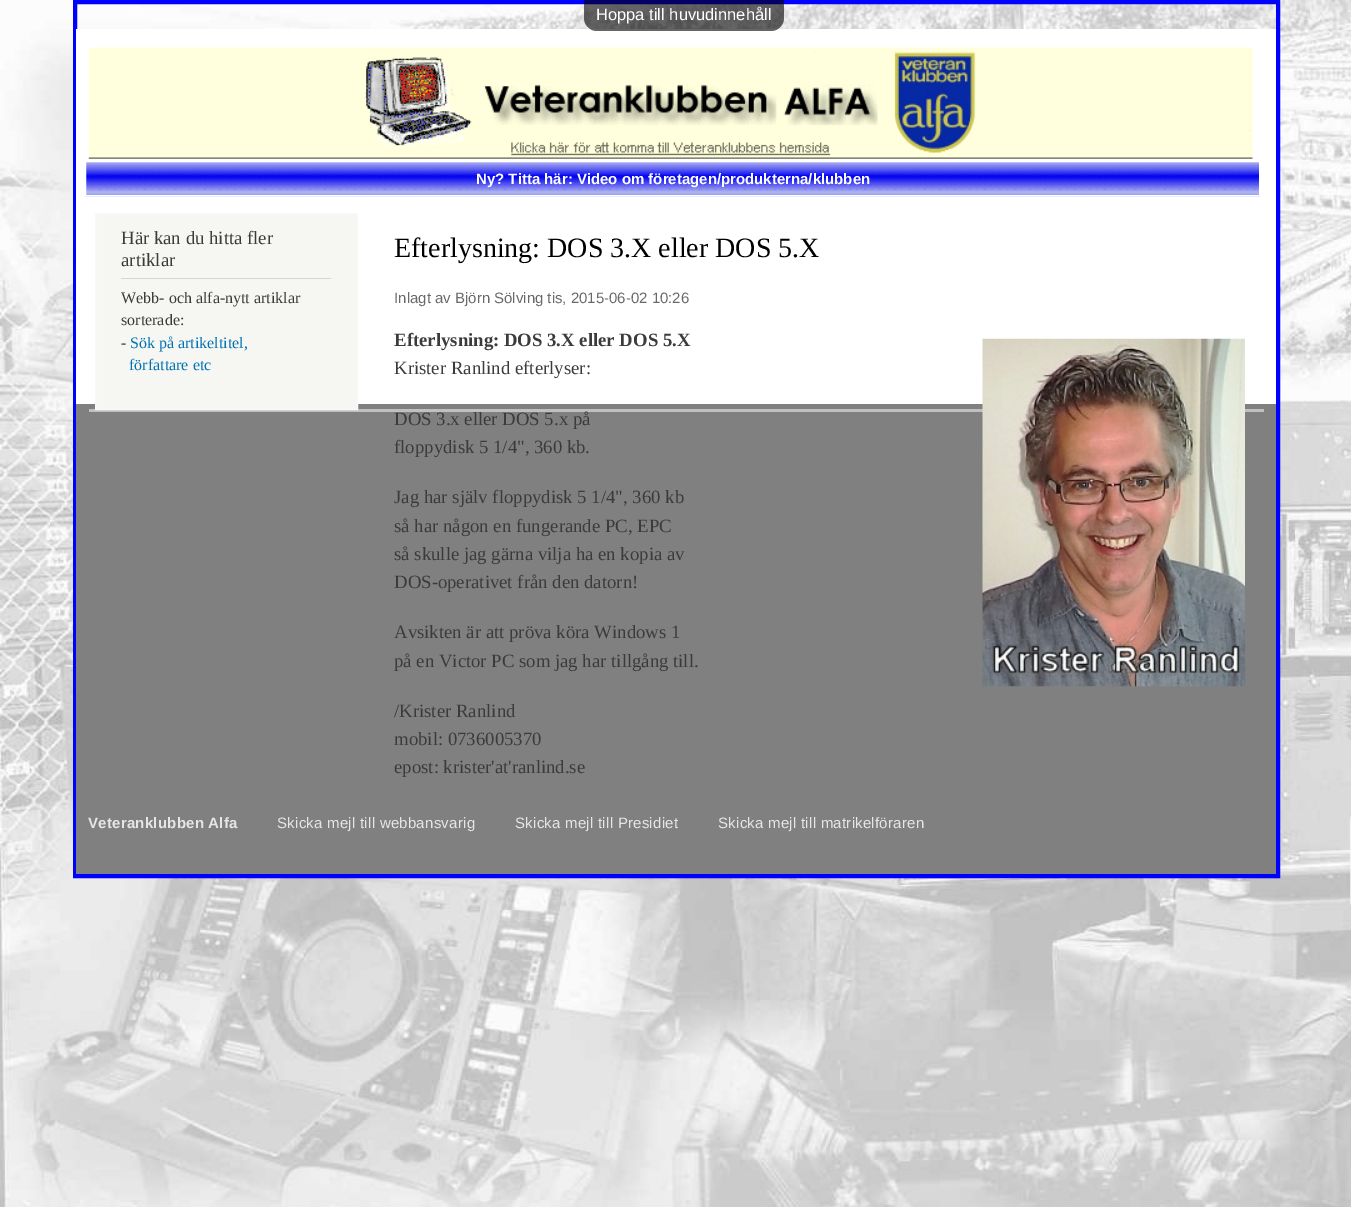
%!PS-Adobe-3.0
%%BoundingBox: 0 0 1351 1207
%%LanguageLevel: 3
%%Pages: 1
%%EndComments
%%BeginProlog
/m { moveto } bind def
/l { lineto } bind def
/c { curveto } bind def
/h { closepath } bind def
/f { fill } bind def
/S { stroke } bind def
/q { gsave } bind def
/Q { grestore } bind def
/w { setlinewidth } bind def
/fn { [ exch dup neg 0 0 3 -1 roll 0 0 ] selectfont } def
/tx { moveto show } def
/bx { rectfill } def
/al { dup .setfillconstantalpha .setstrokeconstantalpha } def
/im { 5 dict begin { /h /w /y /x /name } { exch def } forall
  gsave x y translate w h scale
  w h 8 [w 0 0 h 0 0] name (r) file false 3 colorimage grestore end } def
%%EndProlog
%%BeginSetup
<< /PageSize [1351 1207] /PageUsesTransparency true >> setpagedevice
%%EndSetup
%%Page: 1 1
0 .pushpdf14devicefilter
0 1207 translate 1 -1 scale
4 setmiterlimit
1 setgray
0 0 1351 1207 bx
(image0.raw) 0 0 1351 1207 im
0 0 1 setrgbcolor
4 w
75 2 1203 874 rectstroke
1 setgray
76 29 1200 375 bx
0.6 al
0 setgray
584 0 m 784 0 l 784 18 l 784 25 778 31 771 31 c 597 31 l 590 31 584 25 584 18 c h f
/LiberationSans-Regular 16.5 fn
1 al
1 setgray
(Hoppa till huvudinnehåll) 596 20 tx
(image1.raw) 88 47 1165 112 im
(image2.raw) 85 162 1175 35 im
0.06 al
0 setgray
85.5 161.5 m 1259.5 161.5 l 1259.5 195.5 l 85.5 195.5 l h f
1 al
1 setgray
1 w
85.5 161.5 m 1259.5 161.5 l 1259.5 195.5 l 85.5 195.5 l h S
/LiberationSans-Bold 15 fn
(Ny? Titta här: Video om företagen/produkterna/klubben) 476 184 tx
0.502 setgray
76 404 1200 470 bx
0.753 setgray
89 409 1175 3 bx
0.965 0.965 0.949 setrgbcolor
95.5 213.5 m 357.5 213.5 l 357.5 409.5 l 95.5 409.5 l h q f Q
0.976 setgray
S
0.839 setgray
121 278 210 1 bx
/LiberationSerif-Regular 18.75 fn
0.231 setgray
(Här kan du hitta fler) 121 244 tx
(artiklar) 121 266 tx
/LiberationSerif-Regular 16 fn
(Webb- och alfa-nytt artiklar) 121 303 tx
(sorterade:) 121 325 tx
(-) 121 348 tx
0 0.443 0.702 setrgbcolor
(Sök på artikeltitel,) 130 348 tx
(författare etc) 129 370 tx
/LiberationSerif-Regular 28 fn
0 setgray
(Efterlysning: DOS 3.X eller DOS 5.X) 394 257 tx
/LiberationSans-Regular 15 fn
0.408 0.412 0.42 setrgbcolor
(Inlagt av Björn Sölving tis, 2015-06-02 10:26) 394 303 tx
/LiberationSerif-Bold 18.75 fn
0.231 setgray
(Efterlysning: DOS 3.X eller DOS 5.X) 394 346 tx
/LiberationSerif-Regular 18.75 fn
(Krister Ranlind efterlyser:) 394 374 tx
(image3.raw) 982 338 263 349 im
(DOS 3.x eller DOS 5.x på) 394 425 tx
(floppydisk 5 1/4", 360 kb.) 394 453 tx
(Jag har själv floppydisk 5 1/4", 360 kb) 394 503 tx
(så har någon en fungerande PC, EPC) 394 532 tx
(så skulle jag gärna vilja ha en kopia av) 394 560 tx
(DOS-operativet från den datorn!) 394 588 tx
(Avsikten är att pröva köra Windows 1) 394 638 tx
(på en Victor PC som jag har tillgång till.) 394 667 tx
(/Krister Ranlind) 394 717 tx
(mobil: 0736005370) 394 745 tx
(epost: krister'at'ranlind.se) 394 773 tx
/LiberationSans-Bold 15 fn
0.902 setgray
88 828 m 0.25 0 (Veteranklubben Alfa) ashow
/LiberationSans-Regular 15 fn
277 828 m 0.25 0 (Skicka mejl till webbansvarig) ashow
515 828 m 0.25 0 (Skicka mejl till Presidiet) ashow
718 828 m 0.25 0 (Skicka mejl till matrikelföraren) ashow
.poppdf14devicefilter showpage
%%EOF
